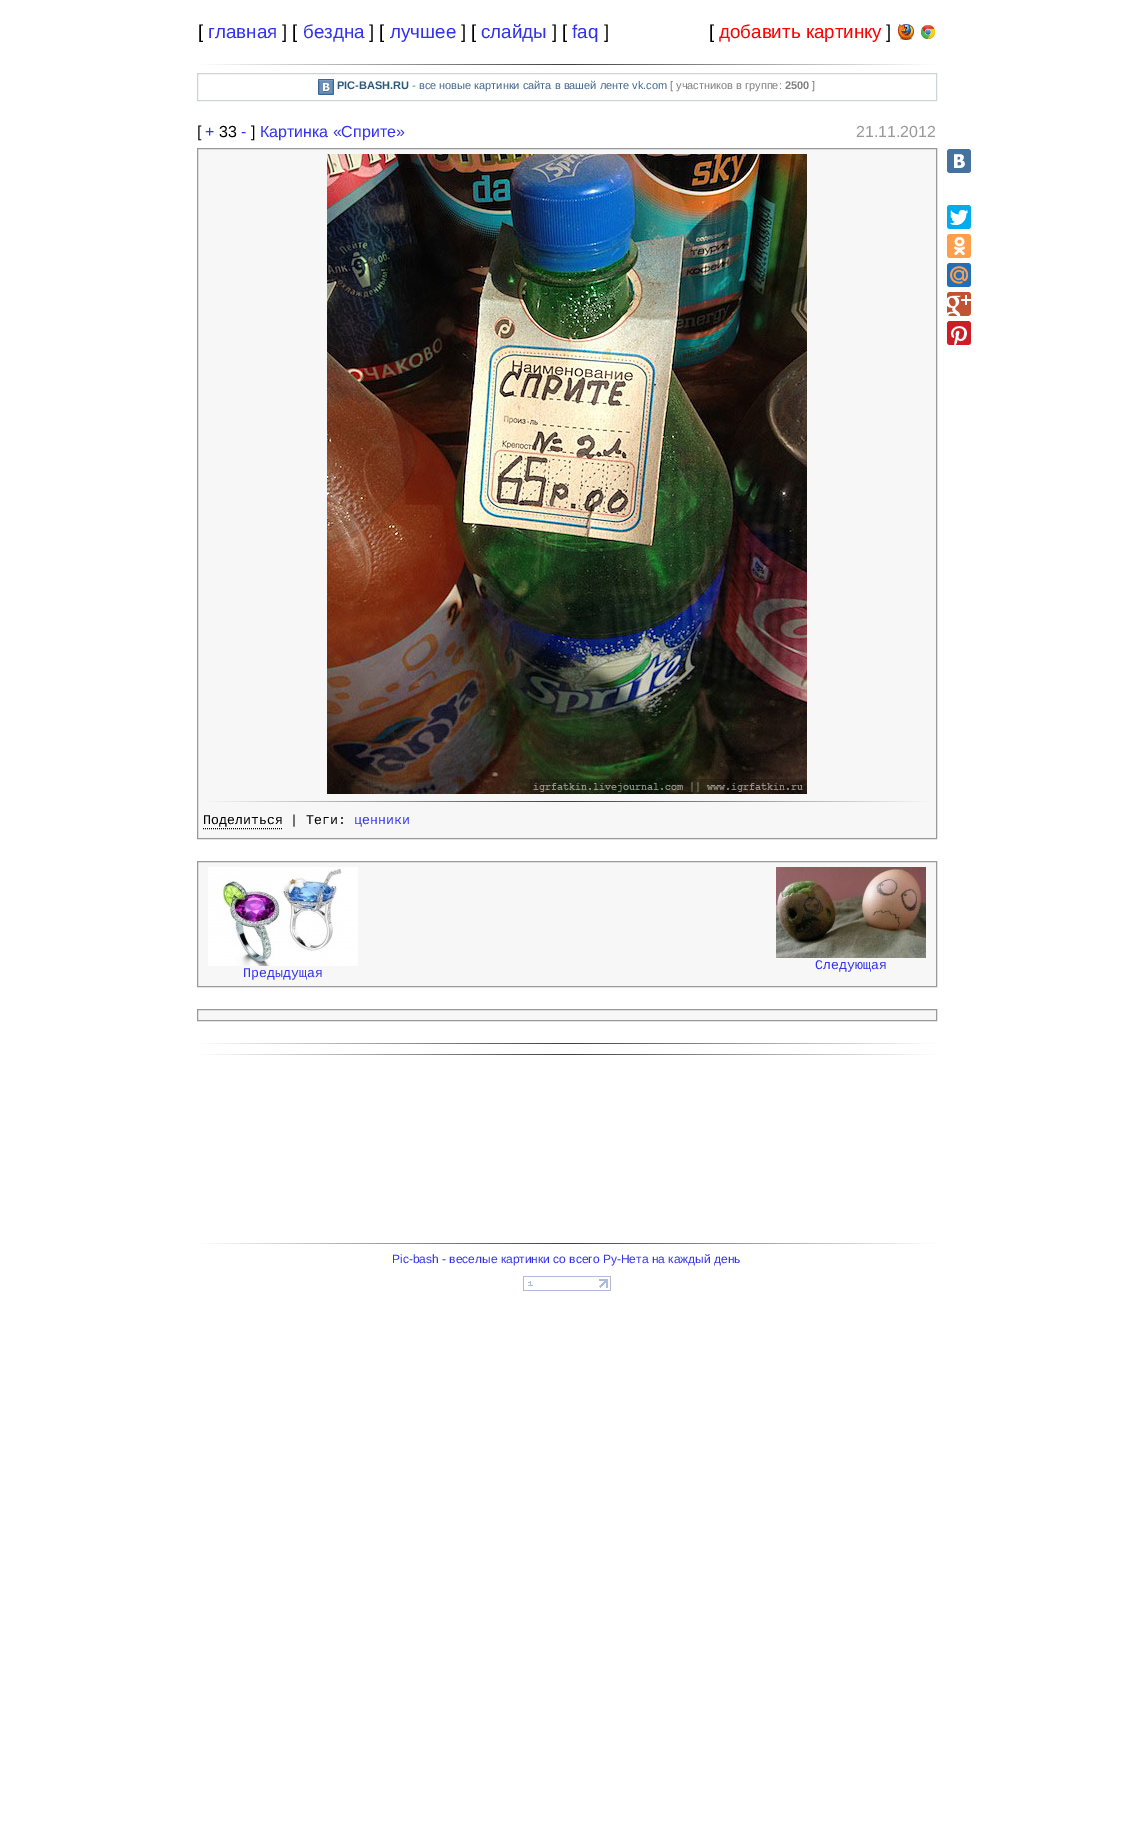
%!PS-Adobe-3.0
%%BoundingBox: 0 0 1133 1826
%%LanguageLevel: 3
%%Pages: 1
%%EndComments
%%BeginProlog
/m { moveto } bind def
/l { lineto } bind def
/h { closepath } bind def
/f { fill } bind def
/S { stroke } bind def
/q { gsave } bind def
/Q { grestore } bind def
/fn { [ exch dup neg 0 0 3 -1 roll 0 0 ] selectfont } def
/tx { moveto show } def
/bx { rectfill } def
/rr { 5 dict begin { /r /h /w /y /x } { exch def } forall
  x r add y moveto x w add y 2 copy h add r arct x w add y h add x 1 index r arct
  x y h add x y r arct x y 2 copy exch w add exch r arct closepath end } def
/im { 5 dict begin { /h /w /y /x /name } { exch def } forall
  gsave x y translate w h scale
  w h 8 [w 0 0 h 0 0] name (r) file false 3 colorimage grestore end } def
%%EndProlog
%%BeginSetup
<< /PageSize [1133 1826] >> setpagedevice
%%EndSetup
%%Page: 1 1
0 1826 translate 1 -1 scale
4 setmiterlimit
1 setgray
0 0 1133 1826 bx
/LiberationSans-Regular 18.75 fn
0 setgray
([) 198 38 tx
0.2 0.2 0.933 setrgbcolor
(главная) 208 38 tx
0 setgray
(] [) 282 38 tx
0.2 0.2 0.933 setrgbcolor
(бездна) 303 38 tx
0 setgray
(] [) 369 38 tx
0.2 0.2 0.933 setrgbcolor
(лучшее) 390 38 tx
0 setgray
(] [) 461 38 tx
0.2 0.2 0.933 setrgbcolor
(слайды) 481 38 tx
0 setgray
(] [) 552 38 tx
0.2 0.2 0.933 setrgbcolor
(faq) 572 38 tx
0 setgray
(]) 604 38 tx
([) 709 38 tx
1 0 0 setrgbcolor
(добавить картинку) 719 38 tx
0 setgray
(]) 886 38 tx
(image0.raw) 898 24 16 16 im
(image1.raw) 921 25 14 14 im
q 197 64 m 937 64 l 937 65 l 197 65 l h clip newpath
<< /ShadingType 2 /ColorSpace /DeviceRGB /Coords [197 65 937 64] /Extend [true true] /Function << /FunctionType 3 /Domain [0 1] /Functions [<< /FunctionType 2 /Domain [0 1] /C0 [1 1 1] /C1 [0.251 0.251 0.251] /N 1 >> << /FunctionType 2 /Domain [0 1] /C0 [0.251 0.251 0.251] /C1 [1 1 1] /N 1 >>] /Bounds [0.5] /Encode [0 1 0 1] >> >> shfill Q
0.8 0.827 0.855 setrgbcolor
197.5 73.5 739 27 rectstroke
(image2.raw) 318 79 16 16 im
/LiberationSans-Bold 11 fn
0.169 0.345 0.478 setrgbcolor
(PIC-BASH.RU) 337 89 tx
/LiberationSans-Regular 11 fn
0.271 0.408 0.557 setrgbcolor
(- все новые картинки сайта в вашей ленте vk.com) 412 89 tx
0.502 setgray
([ участников в группе:) 670 89 tx
/LiberationSans-Bold 11 fn
(2500) 785 89 tx
/LiberationSans-Regular 11 fn
(]) 812 89 tx
/LiberationSans-Regular 16 fn
0 setgray
([) 197 137 tx
0.2 0.2 0.933 setrgbcolor
(+) 205 137 tx
0 setgray
(33) 219 137 tx
0.2 0.2 0.933 setrgbcolor
(-) 241 137 tx
0 setgray
(]) 251 137 tx
0.2 0.2 0.933 setrgbcolor
(Картинка «Сприте») 260 137 tx
0.6 setgray
(21.11.2012) 856 137 tx
0.282 0.447 0.62 setrgbcolor
947 149 24 24 3 rr f
(image3.raw) 954 154 11 14 im
0 0.675 0.929 setrgbcolor
947 205 24 24 3 rr f
(image4.raw) 950 210 18 15 im
1 0.624 0.302 setrgbcolor
947 234 24 24 3 rr f
(image5.raw) 954 237 11 18 im
0.133 0.431 0.718 setrgbcolor
947 263 24 24 3 rr f
(image6.raw) 950 266 18 18 im
0.761 0.322 0.204 setrgbcolor
947 292 24 24 3 rr f
(image7.raw) 947 295 24 21 im
0.804 0.118 0.153 setrgbcolor
947 321 24 24 3 rr f
(image8.raw) 950 326 17 19 im
0.969 setgray
197.5 148.5 m 936.5 148.5 l 936.5 838.5 l 197.5 838.5 l h q f Q
0.6 setgray
S
(image9.raw) 327 154 480 640 im
q 203 801 m 931 801 l 931 802 l 203 802 l h clip newpath
<< /ShadingType 2 /ColorSpace /DeviceRGB /Coords [203 802 931 802] /Extend [true true] /Function << /FunctionType 3 /Domain [0 1] /Functions [<< /FunctionType 2 /Domain [0 1] /C0 [0.969 0.969 0.969] /C1 [0.243 0.243 0.243] /N 1 >> << /FunctionType 2 /Domain [0 1] /C0 [0.243 0.243 0.243] /C1 [0.969 0.969 0.969] /N 1 >>] /Bounds [0.5] /Encode [0 1 0 1] >> >> shfill Q
/LiberationMono-Regular 13.25 fn
0 setgray
(Поделиться) 203 824 tx
[1 1] 0 setdash
203 828.5 m 282 828.5 l S
(| Теги:) 290 824 tx
0.2 0.2 0.933 setrgbcolor
(ценники) 354 824 tx
0.969 setgray
197.5 861.5 m 936.5 861.5 l 936.5 986.5 l 197.5 986.5 l h q f Q
0.6 setgray
[] 0 setdash
S
(image10.raw) 776 867 150 91 im
0.2 0.2 0.933 setrgbcolor
(Следующая) 815 969 tx
(image11.raw) 208 867 150 99 im
(Предыдущая) 243 977 tx
0.969 setgray
197.5 1009.5 m 936.5 1009.5 l 936.5 1020.5 l 197.5 1020.5 l h q f Q
0.6 setgray
S
q 197 1043 m 937 1043 l 937 1044 l 197 1044 l h clip newpath
<< /ShadingType 2 /ColorSpace /DeviceRGB /Coords [197 1044 937 1044] /Extend [true true] /Function << /FunctionType 3 /Domain [0 1] /Functions [<< /FunctionType 2 /Domain [0 1] /C0 [1 1 1] /C1 [0.251 0.251 0.251] /N 1 >> << /FunctionType 2 /Domain [0 1] /C0 [0.251 0.251 0.251] /C1 [1 1 1] /N 1 >>] /Bounds [0.5] /Encode [0 1 0 1] >> >> shfill Q
q 197 1054 m 937 1054 l 937 1055 l 197 1055 l h clip newpath
<< /ShadingType 2 /ColorSpace /DeviceRGB /Coords [197 1055 937 1055] /Extend [true true] /Function << /FunctionType 3 /Domain [0 1] /Functions [<< /FunctionType 2 /Domain [0 1] /C0 [1 1 1] /C1 [0.251 0.251 0.251] /N 1 >> << /FunctionType 2 /Domain [0 1] /C0 [0.251 0.251 0.251] /C1 [1 1 1] /N 1 >>] /Bounds [0.5] /Encode [0 1 0 1] >> >> shfill Q
q 197 1243 m 937 1243 l 937 1244 l 197 1244 l h clip newpath
<< /ShadingType 2 /ColorSpace /DeviceRGB /Coords [197 1244 937 1244] /Extend [true true] /Function << /FunctionType 3 /Domain [0 1] /Functions [<< /FunctionType 2 /Domain [0 1] /C0 [1 1 1] /C1 [0.251 0.251 0.251] /N 1 >> << /FunctionType 2 /Domain [0 1] /C0 [0.251 0.251 0.251] /C1 [1 1 1] /N 1 >>] /Bounds [0.5] /Encode [0 1 0 1] >> >> shfill Q
/LiberationSans-Regular 12 fn
0.2 0.2 0.933 setrgbcolor
(Pic-bash - веселые картинки со всего Ру-Нета на каждый день) 392 1263 tx
(image12.raw) 523 1276 88 15 im
showpage
%%EOF
